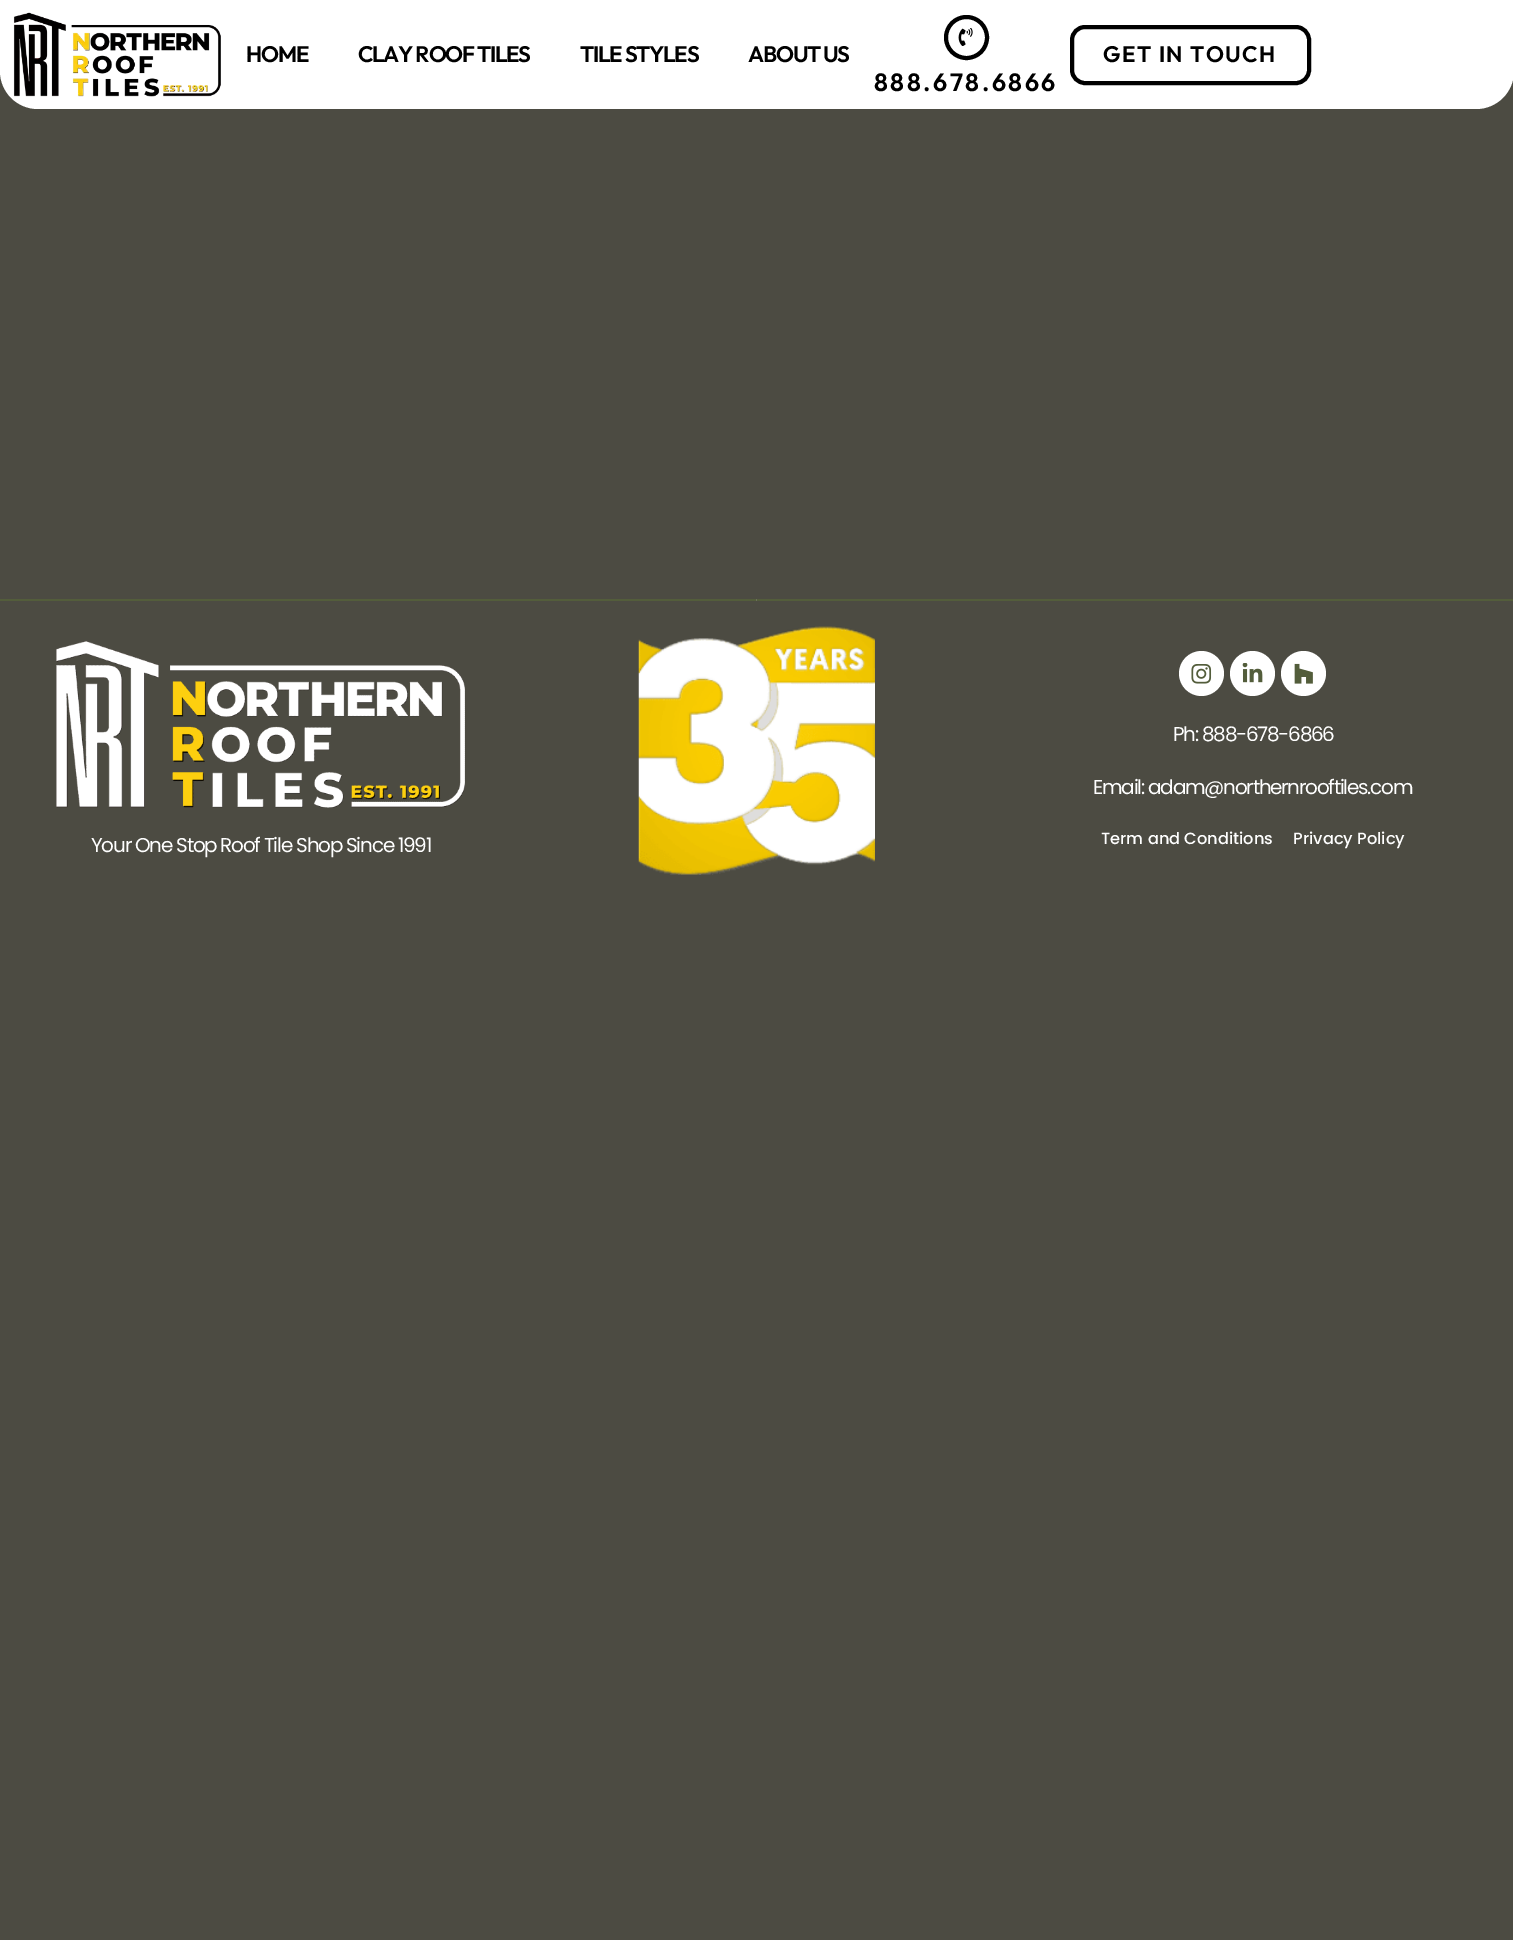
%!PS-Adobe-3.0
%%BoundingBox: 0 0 1513 1940
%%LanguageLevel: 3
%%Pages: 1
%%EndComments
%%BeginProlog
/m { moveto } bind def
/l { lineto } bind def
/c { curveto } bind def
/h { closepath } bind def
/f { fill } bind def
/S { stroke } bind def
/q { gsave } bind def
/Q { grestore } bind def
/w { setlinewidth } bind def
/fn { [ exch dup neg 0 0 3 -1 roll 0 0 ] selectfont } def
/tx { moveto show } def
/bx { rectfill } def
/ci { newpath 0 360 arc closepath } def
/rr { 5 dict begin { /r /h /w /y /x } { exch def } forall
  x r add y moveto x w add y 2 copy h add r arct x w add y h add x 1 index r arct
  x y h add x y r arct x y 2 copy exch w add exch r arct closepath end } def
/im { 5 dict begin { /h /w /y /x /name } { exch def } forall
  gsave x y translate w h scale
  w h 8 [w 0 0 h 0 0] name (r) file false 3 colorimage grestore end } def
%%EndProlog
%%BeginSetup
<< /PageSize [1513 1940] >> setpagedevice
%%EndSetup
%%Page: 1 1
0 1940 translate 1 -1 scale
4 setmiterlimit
0.298 0.294 0.259 setrgbcolor
0 0 1513 1940 bx
1 setgray
0 0 m 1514 0 l 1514 71 l 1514 92 1497 109 1476 109 c 38 109 l 17 109 0 92 0 71 c h f
(image0.raw) 13 12 208 85 im
/Outfit-SemiBold 22.5 fn
0 setgray
246 62 m -1.25 0 (HOME) ashow
358 62 m -1.25 0 (CLAY ROOF TILES) ashow
580 62 m -1.25 0 (TILE STYLES) ashow
748 62 m -1.25 0 (ABOUT US) ashow
4 w
1072 27 237 56 13 rr S
1103 62 m 1.5 0 (GET IN TOUCH) ashow
966.5 37.5 20.5 ci S
(image1.raw) 958 28 15 18 im
/Outfit-SemiBold 25 fn
874 91 m 2.5 0 (888.678.6866) ashow
q 0 599 m 1513 599 l 1513 600 l 0 600 l h clip newpath 757 599 translate 1070 0.9 scale
<< /ShadingType 3 /ColorSpace /DeviceRGB /Coords [0 0 0 0 0 1] /Extend [true true] /Function << /FunctionType 3 /Domain [0 1] /Functions [<< /FunctionType 2 /Domain [0 1] /C0 [0.384 0.38 0.341] /C1 [0.325 0.365 0.231] /N 1 >> << /FunctionType 2 /Domain [0 1] /C0 [0.325 0.365 0.231] /C1 [0.325 0.365 0.231] /N 1 >>] /Bounds [0.8] /Encode [0 1 0 1] >> >> shfill Q
0.424 0.439 0.349 setrgbcolor
756 599 1 1 bx
q 0 600 m 1513 600 l 1513 601 l 0 601 l h clip newpath 757 601 translate 1070 0.9 scale
<< /ShadingType 3 /ColorSpace /DeviceRGB /Coords [0 0 0 0 0 1] /Extend [true true] /Function << /FunctionType 3 /Domain [0 1] /Functions [<< /FunctionType 2 /Domain [0 1] /C0 [0.384 0.38 0.341] /C1 [0.325 0.365 0.231] /N 1 >> << /FunctionType 2 /Domain [0 1] /C0 [0.325 0.365 0.231] /C1 [0.325 0.365 0.231] /N 1 >>] /Bounds [0.8] /Encode [0 1 0 1] >> >> shfill Q
756 600 1 1 bx
(image2.raw) 56 641 409 167 im
/Poppins-Regular 20 fn
1 setgray
91 852 m -1.25 0 (Your One Stop Roof Tile Shop Since 1991) ashow
(image3.raw) 638 626 237 249 im
1201.5 673.5 22.5 ci f
(image4.raw) 1191 664 21 20 im
1252.5 673.5 22.5 ci f
(image5.raw) 1242 663 21 20 im
1303.5 673.5 22.5 ci f
(image6.raw) 1294 663 19 21 im
1173 741 m -1.25 0 (Ph: 888-678-6866) ashow
1093 794 m -1.25 0 (Email: adam@northernrooftiles.com) ashow
/Poppins-Medium 16.25 fn
(Term and Conditions) 1101 844 tx
(Privacy Policy) 1293 844 tx
showpage
%%EOF
